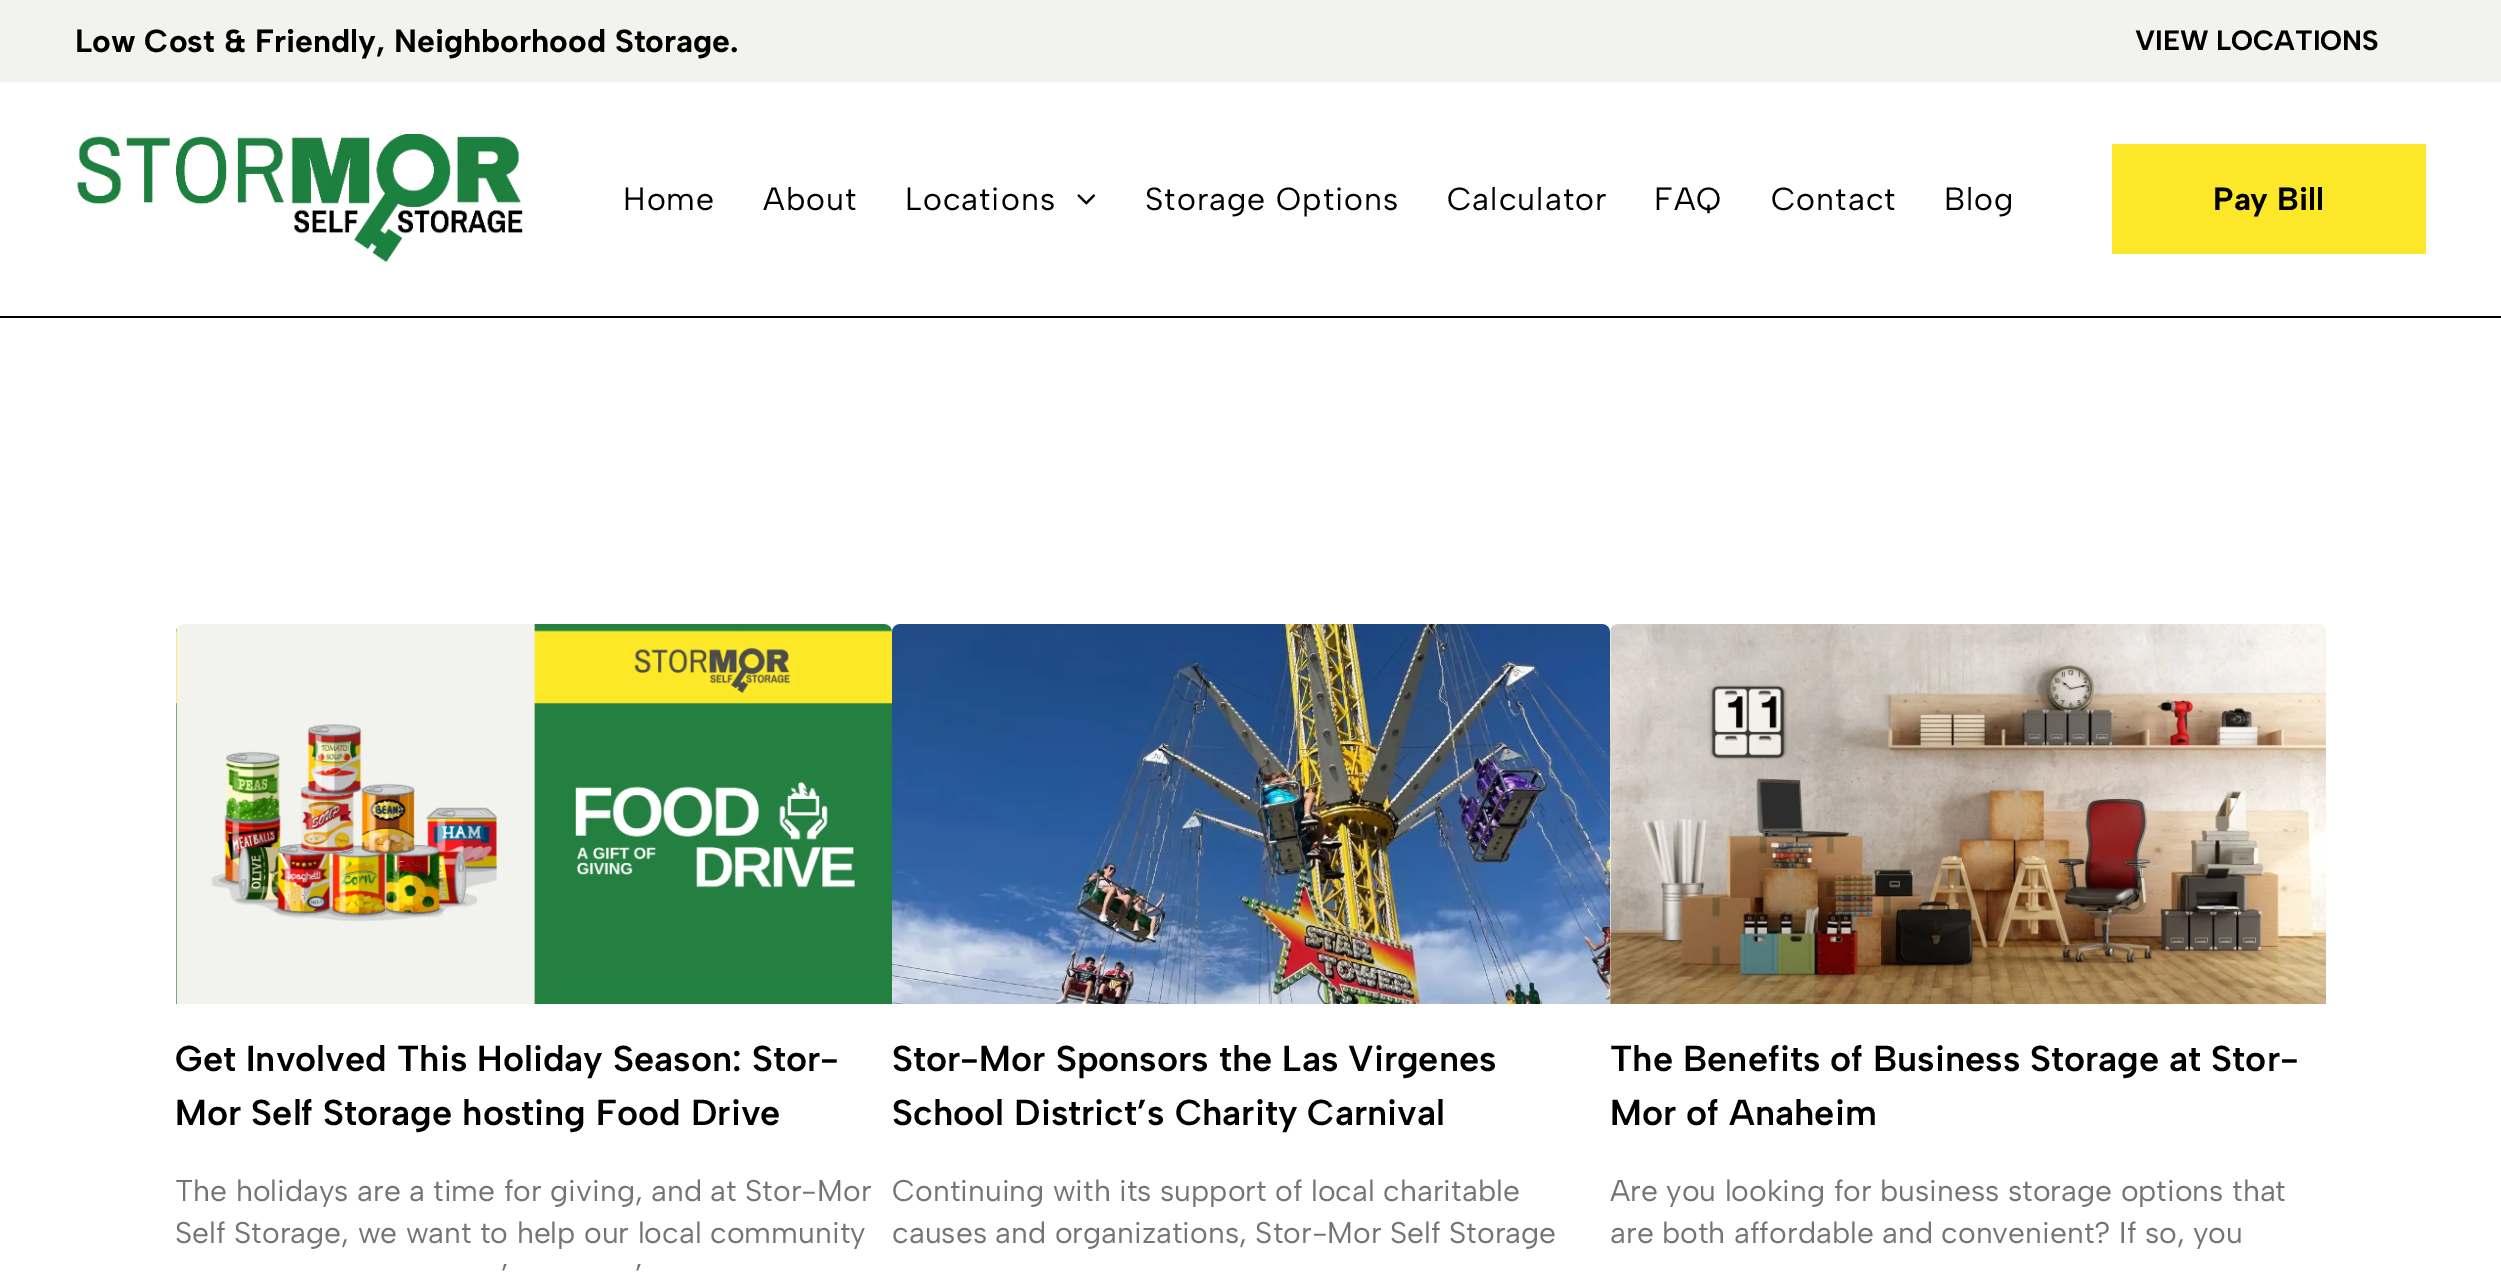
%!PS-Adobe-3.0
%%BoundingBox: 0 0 2501 1275
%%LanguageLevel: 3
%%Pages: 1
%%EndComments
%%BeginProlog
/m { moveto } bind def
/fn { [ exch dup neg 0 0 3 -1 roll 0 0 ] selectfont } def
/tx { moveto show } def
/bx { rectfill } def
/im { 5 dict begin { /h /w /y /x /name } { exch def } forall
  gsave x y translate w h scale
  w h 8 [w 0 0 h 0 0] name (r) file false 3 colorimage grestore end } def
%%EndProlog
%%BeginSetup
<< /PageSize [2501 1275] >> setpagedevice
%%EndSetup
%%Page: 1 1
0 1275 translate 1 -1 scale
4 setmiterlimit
1 setgray
0 0 2501 1275 bx
0.949 0.949 0.937 setrgbcolor
0 0 2501 82 bx
/AlbertSans-Bold 32 fn
0 setgray
(Low Cost & Friendly, Neighborhood Storage.) 75 52 tx
/AlbertSans-Bold 28 fn
(VIEW LOCATIONS) 2135 50 tx
0 316 2501 2 bx
(image0.raw) 77 134 446 129 im
/AlbertSans-Regular 32 fn
623 210 m 1 0 (Home) ashow
763 210 m 1 0 (About) ashow
905 210 m 1 0 (Locations) ashow
(image1.raw) 1077 194 19 11 im
1145 210 m 1 0 (Storage Options) ashow
1447 210 m 1 0 (Calculator) ashow
1654 210 m 1 0 (FAQ) ashow
1771 210 m 1 0 (Contact) ashow
1944 210 m 1 0 (Blog) ashow
0.988 0.91 0.157 setrgbcolor
2112 144 314 110 bx
/AlbertSans-Bold 32 fn
0 setgray
(Pay Bill) 2213 210 tx
(image2.raw) 176 624 716 380 im
/AlbertSans-SemiBold 36 fn
(Get Involved This Holiday Season: Stor-) 175 1071 tx
(Mor Self Storage hosting Food Drive) 175 1125 tx
/AlbertSans-Regular 30 fn
0.455 setgray
(The holidays are a time for giving, and at Stor-Mor) 175 1201 tx
(Self Storage, we want to help our local community) 175 1243 tx
(’) 501 1285 tx
(’) 635 1285 tx
(image3.raw) 892 624 718 380 im
/AlbertSans-SemiBold 36 fn
0 setgray
(Stor-Mor Sponsors the Las Virgenes) 892 1071 tx
(School District’s Charity Carnival) 892 1125 tx
/AlbertSans-Regular 30 fn
0.455 setgray
(Continuing with its support of local charitable) 892 1201 tx
(causes and organizations, Stor-Mor Self Storage) 892 1243 tx
(image4.raw) 1610 624 716 380 im
/AlbertSans-SemiBold 36 fn
0 setgray
(The Benefits of Business Storage at Stor-) 1610 1071 tx
(Mor of Anaheim) 1610 1125 tx
/AlbertSans-Regular 30 fn
0.455 setgray
(Are you looking for business storage options that) 1610 1201 tx
(are both affordable and convenient? If so, you) 1610 1243 tx
showpage
%%EOF
